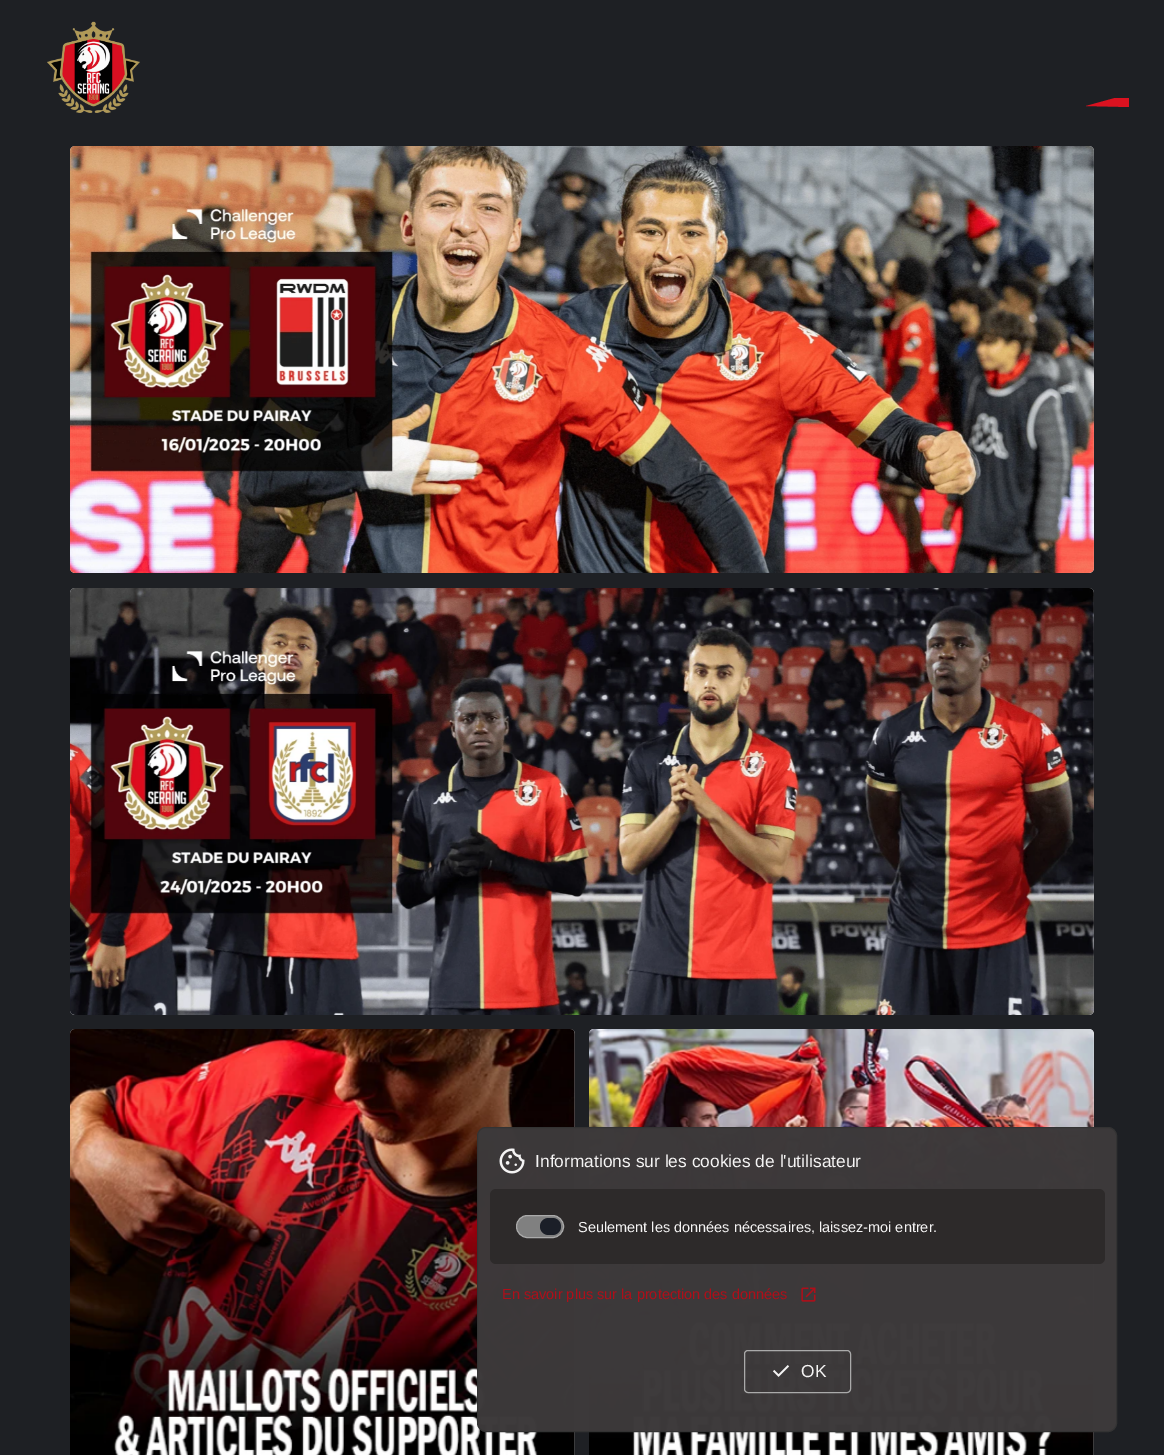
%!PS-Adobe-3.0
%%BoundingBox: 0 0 1164 1455
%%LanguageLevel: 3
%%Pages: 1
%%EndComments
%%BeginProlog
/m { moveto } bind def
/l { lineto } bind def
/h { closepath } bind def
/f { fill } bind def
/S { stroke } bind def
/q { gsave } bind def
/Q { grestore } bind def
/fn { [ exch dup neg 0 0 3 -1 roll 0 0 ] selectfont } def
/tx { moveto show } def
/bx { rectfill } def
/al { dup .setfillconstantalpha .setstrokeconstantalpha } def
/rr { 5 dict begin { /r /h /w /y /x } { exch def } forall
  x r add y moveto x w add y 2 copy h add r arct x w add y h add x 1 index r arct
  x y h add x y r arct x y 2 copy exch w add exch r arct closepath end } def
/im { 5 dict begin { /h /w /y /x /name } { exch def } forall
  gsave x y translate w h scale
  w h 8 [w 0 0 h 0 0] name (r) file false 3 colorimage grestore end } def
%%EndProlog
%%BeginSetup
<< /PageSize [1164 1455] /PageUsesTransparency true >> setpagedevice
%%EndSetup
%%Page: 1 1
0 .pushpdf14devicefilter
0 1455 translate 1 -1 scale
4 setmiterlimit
0.118 0.125 0.141 setrgbcolor
0 0 1164 1455 bx
(image0.raw) 47 21 93 92 im
0.855 0.071 0.125 setrgbcolor
1086 106 m 1115 98 l 1129 98 l 1129 107 l h f
(image1.raw) 70 146 1024 427 im
(image2.raw) 70 588 1024 427 im
0.937 0.945 0.961 setrgbcolor
70 1029 505 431 5 rr f
(image3.raw) 70 1029 505 426 im
589 1029 505 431 5 rr f
(image4.raw) 589 1029 505 426 im
0.99 al
0.235 0.224 0.227 setrgbcolor
477.5 1127.5 639 304 8.5 rr f
1 al
0.2 setgray
477.5 1127.5 639 304 8.5 rr S
(image5.raw) 499 1148 26 26 im
/LiberationSans-Regular 17.4 fn
0.961 0.957 0.957 setrgbcolor
(Informations sur les cookies de l'utilisateur) 535 1167 tx
0.176 0.165 0.165 setrgbcolor
490 1189 615 75 6 rr f
0.502 setgray
516.5 1215.5 47 22 11 rr q f Q
0.667 setgray
S
0.106 0.122 0.157 setrgbcolor
540 1218 21 17 8.5 rr f
/LiberationSans-Regular 14.5 fn
0.961 0.957 0.957 setrgbcolor
(Seulement les données nécessaires, laissez-moi entrer.) 578 1232 tx
0.686 0.055 0.098 setrgbcolor
(En savoir plus sur la protection des données) 502 1299 tx
(image6.raw) 801 1287 15 15 im
0.667 setgray
744.5 1350.5 106 42 3.5 rr S
(image7.raw) 772 1365 18 12 im
/LiberationSans-Regular 17.4 fn
0.961 0.957 0.957 setrgbcolor
(OK) 801 1377 tx
.poppdf14devicefilter showpage
%%EOF
